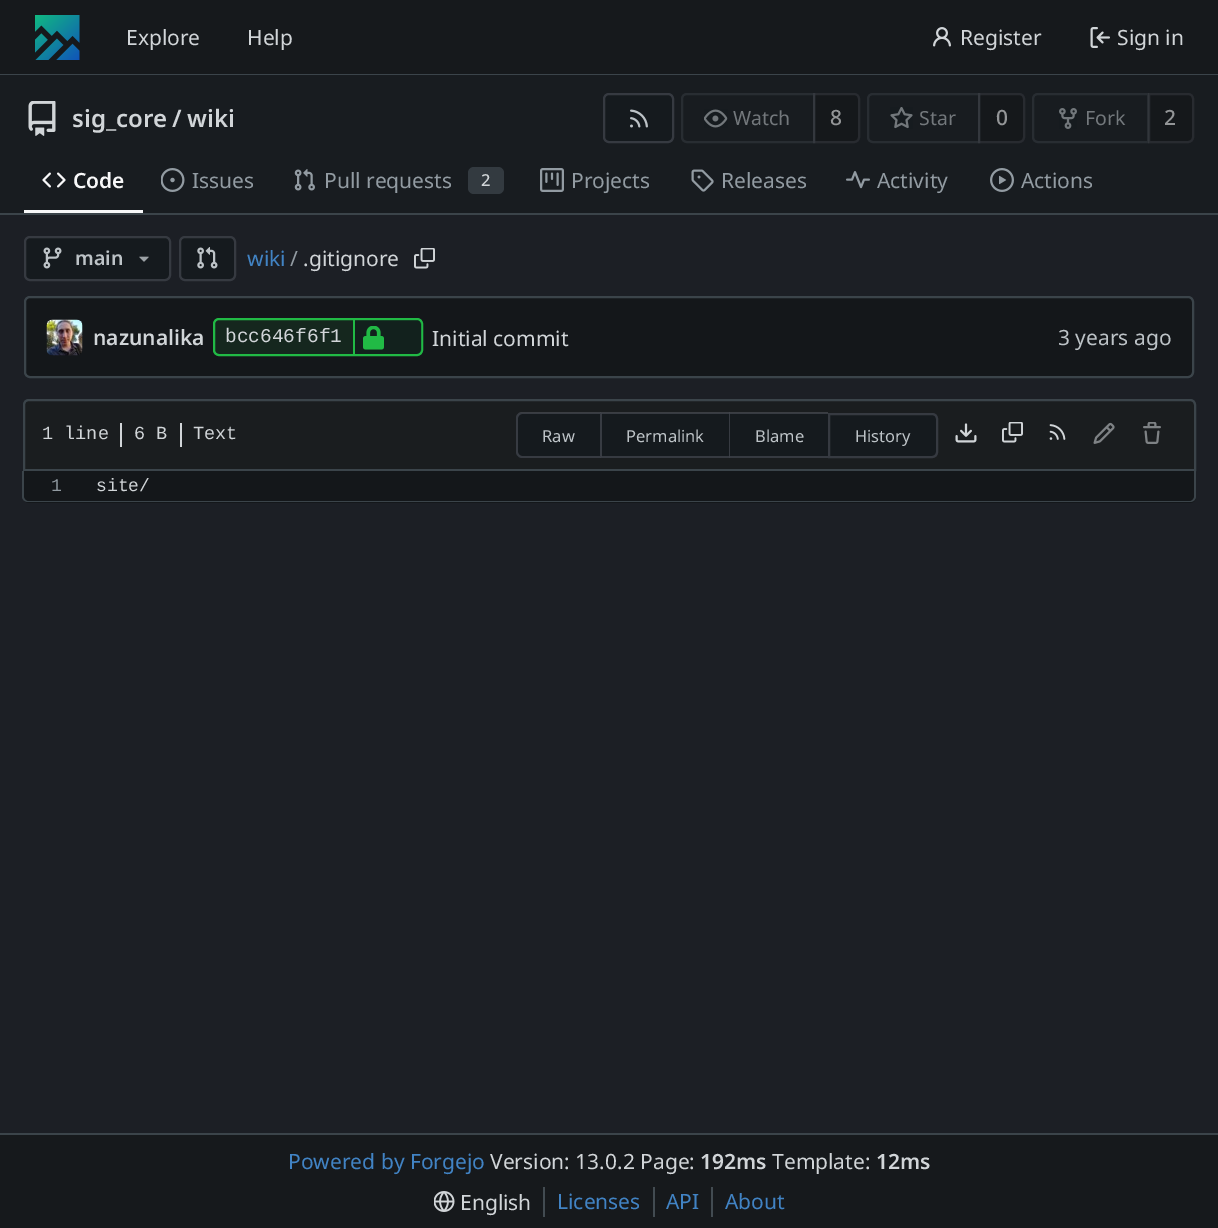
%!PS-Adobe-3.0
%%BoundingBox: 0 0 1218 1228
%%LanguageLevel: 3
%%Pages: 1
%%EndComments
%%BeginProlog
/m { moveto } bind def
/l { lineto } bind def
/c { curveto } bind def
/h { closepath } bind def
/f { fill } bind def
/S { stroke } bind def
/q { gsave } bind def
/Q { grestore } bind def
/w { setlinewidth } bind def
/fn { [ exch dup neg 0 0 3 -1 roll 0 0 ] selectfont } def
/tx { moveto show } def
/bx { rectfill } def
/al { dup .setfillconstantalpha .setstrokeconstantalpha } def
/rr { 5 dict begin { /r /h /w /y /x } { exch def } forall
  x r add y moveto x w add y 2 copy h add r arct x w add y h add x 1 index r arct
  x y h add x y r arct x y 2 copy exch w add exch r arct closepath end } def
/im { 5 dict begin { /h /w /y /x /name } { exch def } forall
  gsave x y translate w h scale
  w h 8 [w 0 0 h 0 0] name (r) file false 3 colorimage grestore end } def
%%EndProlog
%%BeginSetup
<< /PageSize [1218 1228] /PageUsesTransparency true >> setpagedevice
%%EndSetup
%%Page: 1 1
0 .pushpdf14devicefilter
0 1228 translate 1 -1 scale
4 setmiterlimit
0.11 0.122 0.145 setrgbcolor
0 0 1218 1228 bx
0.086 0.098 0.11 setrgbcolor
0 0 1218 74 bx
0.231 0.267 0.29 setrgbcolor
0 74 1218 1 bx
(image0.raw) 35 15 45 45 im
/NotoSans-Regular 21 fn
0.82 0.835 0.847 setrgbcolor
(Explore) 126 45 tx
(Help) 247 45 tx
(image1.raw) 933 27 18 20 im
(Register) 960 45 tx
(image2.raw) 1090 27 20 21 im
(Sign in) 1117 45 tx
0.094 0.11 0.125 setrgbcolor
0 75 1218 138 bx
(image3.raw) 28 101 28 35 im
/NotoSans-SemiBold 24 fn
0.82 0.835 0.847 setrgbcolor
(sig_core) 72 127 tx
(/) 172 127 tx
(wiki) 187 127 tx
0.082 0.102 0.118 setrgbcolor
604 94 69 48 5 rr q f Q
0.212 0.227 0.255 setrgbcolor
2 w
S
(image4.raw) 630 109 18 19 im
0.157 0.176 0.196 setrgbcolor
687 94 m 814 94 l 814 142 l 687 142 l 684 142 682 140 682 137 c 682 99 l 682 96 684 94 687 94 c h S
(image5.raw) 704 109 24 19 im
/NotoSans-Regular 19.5 fn
0.451 0.471 0.486 setrgbcolor
(Watch) 733 125 tx
0.14 al
0 setgray
813 93 m 854 93 l 857.5 93 860 95.5 860 99 c 860 137 l 860 140.5 857.5 143 854 143 c 813 143 l h f
0.09 al
0.91 0.91 1 setrgbcolor
814 94 m 854 94 l 857 94 859 96 859 99 c 859 137 l 859 140 857 142 854 142 c 814 142 l h S
/NotoSans-Medium 21 fn
1 al
0.576 0.584 0.592 setrgbcolor
(8) 830 125 tx
0.157 0.176 0.196 setrgbcolor
873 94 m 979 94 l 979 142 l 873 142 l 870 142 868 140 868 137 c 868 99 l 868 96 870 94 873 94 c h S
(image6.raw) 890 107 23 22 im
/NotoSans-Regular 19.5 fn
0.451 0.471 0.486 setrgbcolor
(Star) 919 125 tx
0.14 al
0 setgray
978 93 m 1019 93 l 1022.5 93 1025 95.5 1025 99 c 1025 137 l 1025 140.5 1022.5 143 1019 143 c 978 143 l h f
0.09 al
0.91 0.91 1 setrgbcolor
979 94 m 1019 94 l 1022 94 1024 96 1024 99 c 1024 137 l 1024 140 1022 142 1019 142 c 979 142 l h S
/NotoSans-Medium 21 fn
1 al
0.576 0.584 0.592 setrgbcolor
(0) 996 125 tx
0.157 0.176 0.196 setrgbcolor
1038 94 m 1148 94 l 1148 142 l 1038 142 l 1035 142 1033 140 1033 137 c 1033 99 l 1033 96 1035 94 1038 94 c h S
(image7.raw) 1059 108 18 21 im
/NotoSans-Regular 19.5 fn
0.451 0.471 0.486 setrgbcolor
(Fork) 1085 125 tx
0.25 al
0.043 0.051 0.055 setrgbcolor
1148 93 m 1188 93 l 1191.5 93 1194 95.5 1194 99 c 1194 137 l 1194 140.5 1191.5 143 1188 143 c 1148 143 l h f
0.16 al
0.541 0.549 0.608 setrgbcolor
1149 94 m 1188 94 l 1191 94 1193 96 1193 99 c 1193 137 l 1193 140 1191 142 1188 142 c 1149 142 l h S
/NotoSans-Medium 21 fn
1 al
0.576 0.584 0.592 setrgbcolor
(2) 1164 125 tx
0.973 0.973 0.976 setrgbcolor
24 210 119 3 bx
(image8.raw) 42 172 24 16 im
/NotoSans-SemiBold 21 fn
(Code) 73 188 tx
(image9.raw) 161 168 24 24 im
/NotoSans-Regular 21 fn
0.573 0.608 0.635 setrgbcolor
(Issues) 192 188 tx
(image10.raw) 294 169 21 22 im
(Pull requests) 324 188 tx
0.2 0.227 0.251 setrgbcolor
468 167 36 27 6 rr f
/NotoSans-Medium 16.5 fn
0.82 0.835 0.847 setrgbcolor
(2) 481 186 tx
(image11.raw) 540 168 24 24 im
/NotoSans-Regular 21 fn
0.573 0.608 0.635 setrgbcolor
(Projects) 571 188 tx
(image12.raw) 691 169 23 23 im
(Releases) 721 188 tx
(image13.raw) 846 171 24 18 im
(Activity) 877 188 tx
(image14.raw) 990 168 24 24 im
(Actions) 1021 188 tx
0.231 0.267 0.29 setrgbcolor
0 213 1218 2 bx
0.082 0.102 0.118 setrgbcolor
25 237 145 43 5 rr q f Q
0.212 0.227 0.255 setrgbcolor
S
(image15.raw) 43 247 19 22 im
/NotoSans-SemiBold 19.5 fn
0.741 0.765 0.78 setrgbcolor
(main) 75 265 tx
(image16.raw) 139 256 10 6 im
0.082 0.102 0.118 setrgbcolor
180 237 55 43 5 rr q f Q
0.212 0.227 0.255 setrgbcolor
S
(image17.raw) 197 247 21 22 im
/NotoSans-Regular 21 fn
0.255 0.514 0.769 setrgbcolor
(wiki) 247 266 tx
0.573 0.608 0.635 setrgbcolor
(/) 290 266 tx
0.82 0.835 0.847 setrgbcolor
(.gitignore) 303 266 tx
(image18.raw) 414 248 21 21 im
0.078 0.09 0.102 setrgbcolor
25 297 1168 80 5 rr q f Q
0.231 0.267 0.29 setrgbcolor
S
(image19.raw) 46 319 37 37 im
/NotoSans-SemiBold 21 fn
0.82 0.835 0.847 setrgbcolor
(nazunalika) 93 345 tx
0.082 0.153 0.118 setrgbcolor
214 319 208 36 5 rr q f Q
0.129 0.729 0.271 setrgbcolor
S
/LiberationMono-Regular 19.5 fn
0.82 0.835 0.847 setrgbcolor
(bcc646f6f1) 225 342 tx
0.16 al
0 0 0.09 setrgbcolor
354 320 m 416 320 l 419.5 320 422 322.5 422 326 c 422 348 l 422 351.5 419.5 354 416 354 c 354 354 l h f
1 al
0.129 0.729 0.271 setrgbcolor
353 320 2 34 bx
(image20.raw) 363 326 21 24 im
/NotoSans-Regular 21 fn
0.82 0.835 0.847 setrgbcolor
(Initial commit) 432 346 tx
0.741 0.765 0.78 setrgbcolor
(3 years ago) 1058 345 tx
0.102 0.114 0.122 setrgbcolor
29 400 m 1190 400 l 1193 400 1195 402 1195 405 c 1195 470 l 24 470 l 24 405 l 24 402 26 400 29 400 c h q f Q
0.231 0.267 0.29 setrgbcolor
S
/LiberationMono-Regular 18.5 fn
0.82 0.835 0.847 setrgbcolor
(1 line) 42 439 tx
120 423 2 24 bx
(6 B) 134 439 tx
180 423 2 24 bx
(Text) 193 439 tx
0.082 0.102 0.118 setrgbcolor
522 413 m 600 413 l 600 458 l 522 458 l 518.5 458 516 455.5 516 452 c 516 419 l 516 415.5 518.5 413 522 413 c h f
0.16 al
0.91 0.91 1 setrgbcolor
522 412 m 600 412 l 600 458 l 522 458 l 519 458 516 455 516 452 c 516 418 l 516 415 519 412 522 412 c h 522 414 m 600 414 l 600 456 l 522 456 l 520 456 518 454 518 452 c 518 418 l 518 416 520 414 522 414 c h eofill
/NotoSans-Regular 16.5 fn
1 al
0.741 0.765 0.78 setrgbcolor
(Raw) 542 442 tx
0.082 0.102 0.118 setrgbcolor
600 413 228 45 bx
0.16 al
0.91 0.91 1 setrgbcolor
600 412 m 729 412 l 729 414 l 602 414 l h f
1 al
0.212 0.227 0.255 setrgbcolor
729 458 m 600 458 l 602 456 l 729 456 l h f
0.16 al
0.91 0.91 1 setrgbcolor
600 458 m 600 412 l 602 414 l 602 456 l h f
1 al
0.741 0.765 0.78 setrgbcolor
(Permalink) 626 442 tx
0.16 al
0.91 0.91 1 setrgbcolor
729 412 m 828 412 l 828 414 l 730 414 l h f
1 al
0.212 0.227 0.255 setrgbcolor
828 458 m 729 458 l 730 456 l 828 456 l h f
0.16 al
0.91 0.91 1 setrgbcolor
729 458 m 729 412 l 730 414 l 730 456 l h f
1 al
0.741 0.765 0.78 setrgbcolor
(Blame) 755 442 tx
0.082 0.102 0.118 setrgbcolor
829 414 m 932 414 l 935 414 937 416 937 419 c 937 452 l 937 455 935 457 932 457 c 829 457 l h q f Q
0.212 0.227 0.255 setrgbcolor
S
0.741 0.765 0.78 setrgbcolor
(History) 855 442 tx
(image21.raw) 955 423 22 20 im
(image22.raw) 1002 422 21 21 im
(image23.raw) 1049 424 17 16 im
(image24.raw) 1093 422 22 22 im
(image25.raw) 1143 422 18 22 im
0.078 0.09 0.102 setrgbcolor
23 471 m 1196 471 l 1196 497 l 1196 500.5 1193.5 503 1190 503 c 29 503 l 25.5 503 23 500.5 23 497 c h f
0.231 0.267 0.29 setrgbcolor
22 471 m 1196 471 l 1196 496 l 1196 500 1193 502 1190 502 c 28 502 l 25 502 22 500 22 496 c h 24 471 m 1194 471 l 1194 496 l 1194 499 1192 501 1190 501 c 28 501 l 26 501 24 499 24 496 c h eofill
0.078 0.09 0.102 setrgbcolor
24 471 1170 30 6 rr f
/LiberationMono-Regular 18 fn
0.573 0.608 0.635 setrgbcolor
(1) 51 491 tx
0.82 0.835 0.847 setrgbcolor
(site/) 96 491 tx
0.086 0.098 0.11 setrgbcolor
0 1135 1218 93 bx
0.231 0.267 0.29 setrgbcolor
0 1133 1218 2 bx
/NotoSans-Regular 21 fn
0.255 0.514 0.769 setrgbcolor
(Powered by Forgejo) 288 1169 tx
0.82 0.835 0.847 setrgbcolor
(Version: 13.0.2 Page:) 490 1169 tx
/NotoSans-SemiBold 21 fn
(192ms) 700 1169 tx
/NotoSans-Regular 21 fn
(Template:) 772 1169 tx
/NotoSans-SemiBold 21 fn
(12ms) 876 1169 tx
(image26.raw) 434 1191 21 21 im
/NotoSans-Regular 21 fn
(English) 460 1210 tx
0.259 0.294 0.318 setrgbcolor
543 1187 2 30 bx
0.255 0.514 0.769 setrgbcolor
(Licenses) 557 1209 tx
0.259 0.294 0.318 setrgbcolor
653 1187 2 30 bx
0.255 0.514 0.769 setrgbcolor
(API) 666 1209 tx
0.259 0.294 0.318 setrgbcolor
711 1187 2 30 bx
0.255 0.514 0.769 setrgbcolor
(About) 725 1209 tx
.poppdf14devicefilter showpage
%%EOF
